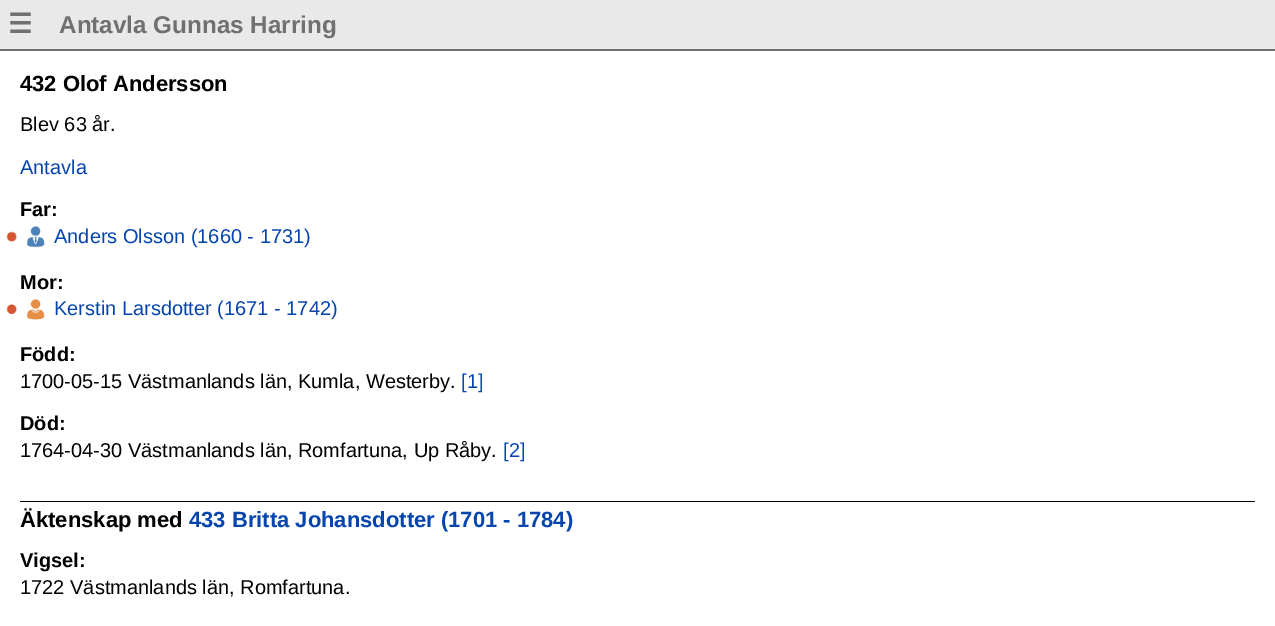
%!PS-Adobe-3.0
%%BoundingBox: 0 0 1275 626
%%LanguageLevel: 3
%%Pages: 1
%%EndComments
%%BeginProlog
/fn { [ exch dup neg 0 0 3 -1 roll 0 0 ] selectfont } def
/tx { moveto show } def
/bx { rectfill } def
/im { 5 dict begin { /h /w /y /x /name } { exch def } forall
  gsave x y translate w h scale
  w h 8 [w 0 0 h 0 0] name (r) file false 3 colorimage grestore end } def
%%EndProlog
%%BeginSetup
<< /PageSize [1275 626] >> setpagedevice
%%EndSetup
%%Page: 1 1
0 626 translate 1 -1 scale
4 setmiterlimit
1 setgray
0 0 1275 626 bx
0.914 setgray
0 0 1275 49 bx
0.439 setgray
0 49 1275 2 bx
/DejaVuSans-Bold 27 fn
(☰) 8 33 tx
/LiberationSans-Bold 24.25 fn
(Antavla Gunnas Harring) 59 33 tx
/LiberationSans-Bold 22 fn
0 setgray
(432 Olof Andersson) 20 91 tx
/LiberationSans-Regular 20 fn
(Blev 63 år.) 20 131 tx
0.024 0.271 0.678 setrgbcolor
(Antavla) 20 174 tx
/LiberationSans-Bold 20 fn
0 setgray
(Far:) 20 216 tx
(image0.raw) 6 231 11 11 im
(image1.raw) 26 226 19 22 im
/LiberationSans-Regular 20 fn
0.024 0.271 0.678 setrgbcolor
(Anders Olsson \(1660 - 1731\)) 54 243 tx
/LiberationSans-Bold 20 fn
0 setgray
(Mor:) 20 289 tx
(image2.raw) 6 304 11 10 im
(image3.raw) 26 299 19 21 im
/LiberationSans-Regular 20 fn
0.024 0.271 0.678 setrgbcolor
(Kerstin Larsdotter \(1671 - 1742\)) 54 315 tx
/LiberationSans-Bold 20 fn
0 setgray
(Född:) 20 361 tx
/LiberationSans-Regular 20 fn
(1700-05-15 Västmanlands län, Kumla, Westerby.) 20 388 tx
0.024 0.271 0.678 setrgbcolor
([1]) 461 388 tx
/LiberationSans-Bold 20 fn
0 setgray
(Död:) 20 430 tx
/LiberationSans-Regular 20 fn
(1764-04-30 Västmanlands län, Romfartuna, Up Råby.) 20 457 tx
0.024 0.271 0.678 setrgbcolor
([2]) 503 457 tx
0 setgray
20 501 1235 1 bx
/LiberationSans-Bold 22 fn
(Äktenskap med) 20 527 tx
0.024 0.271 0.678 setrgbcolor
(433 Britta Johansdotter \(1701 - 1784\)) 189 527 tx
/LiberationSans-Bold 20 fn
0 setgray
(Vigsel:) 20 567 tx
/LiberationSans-Regular 20 fn
(1722 Västmanlands län, Romfartuna.) 20 594 tx
showpage
%%EOF
